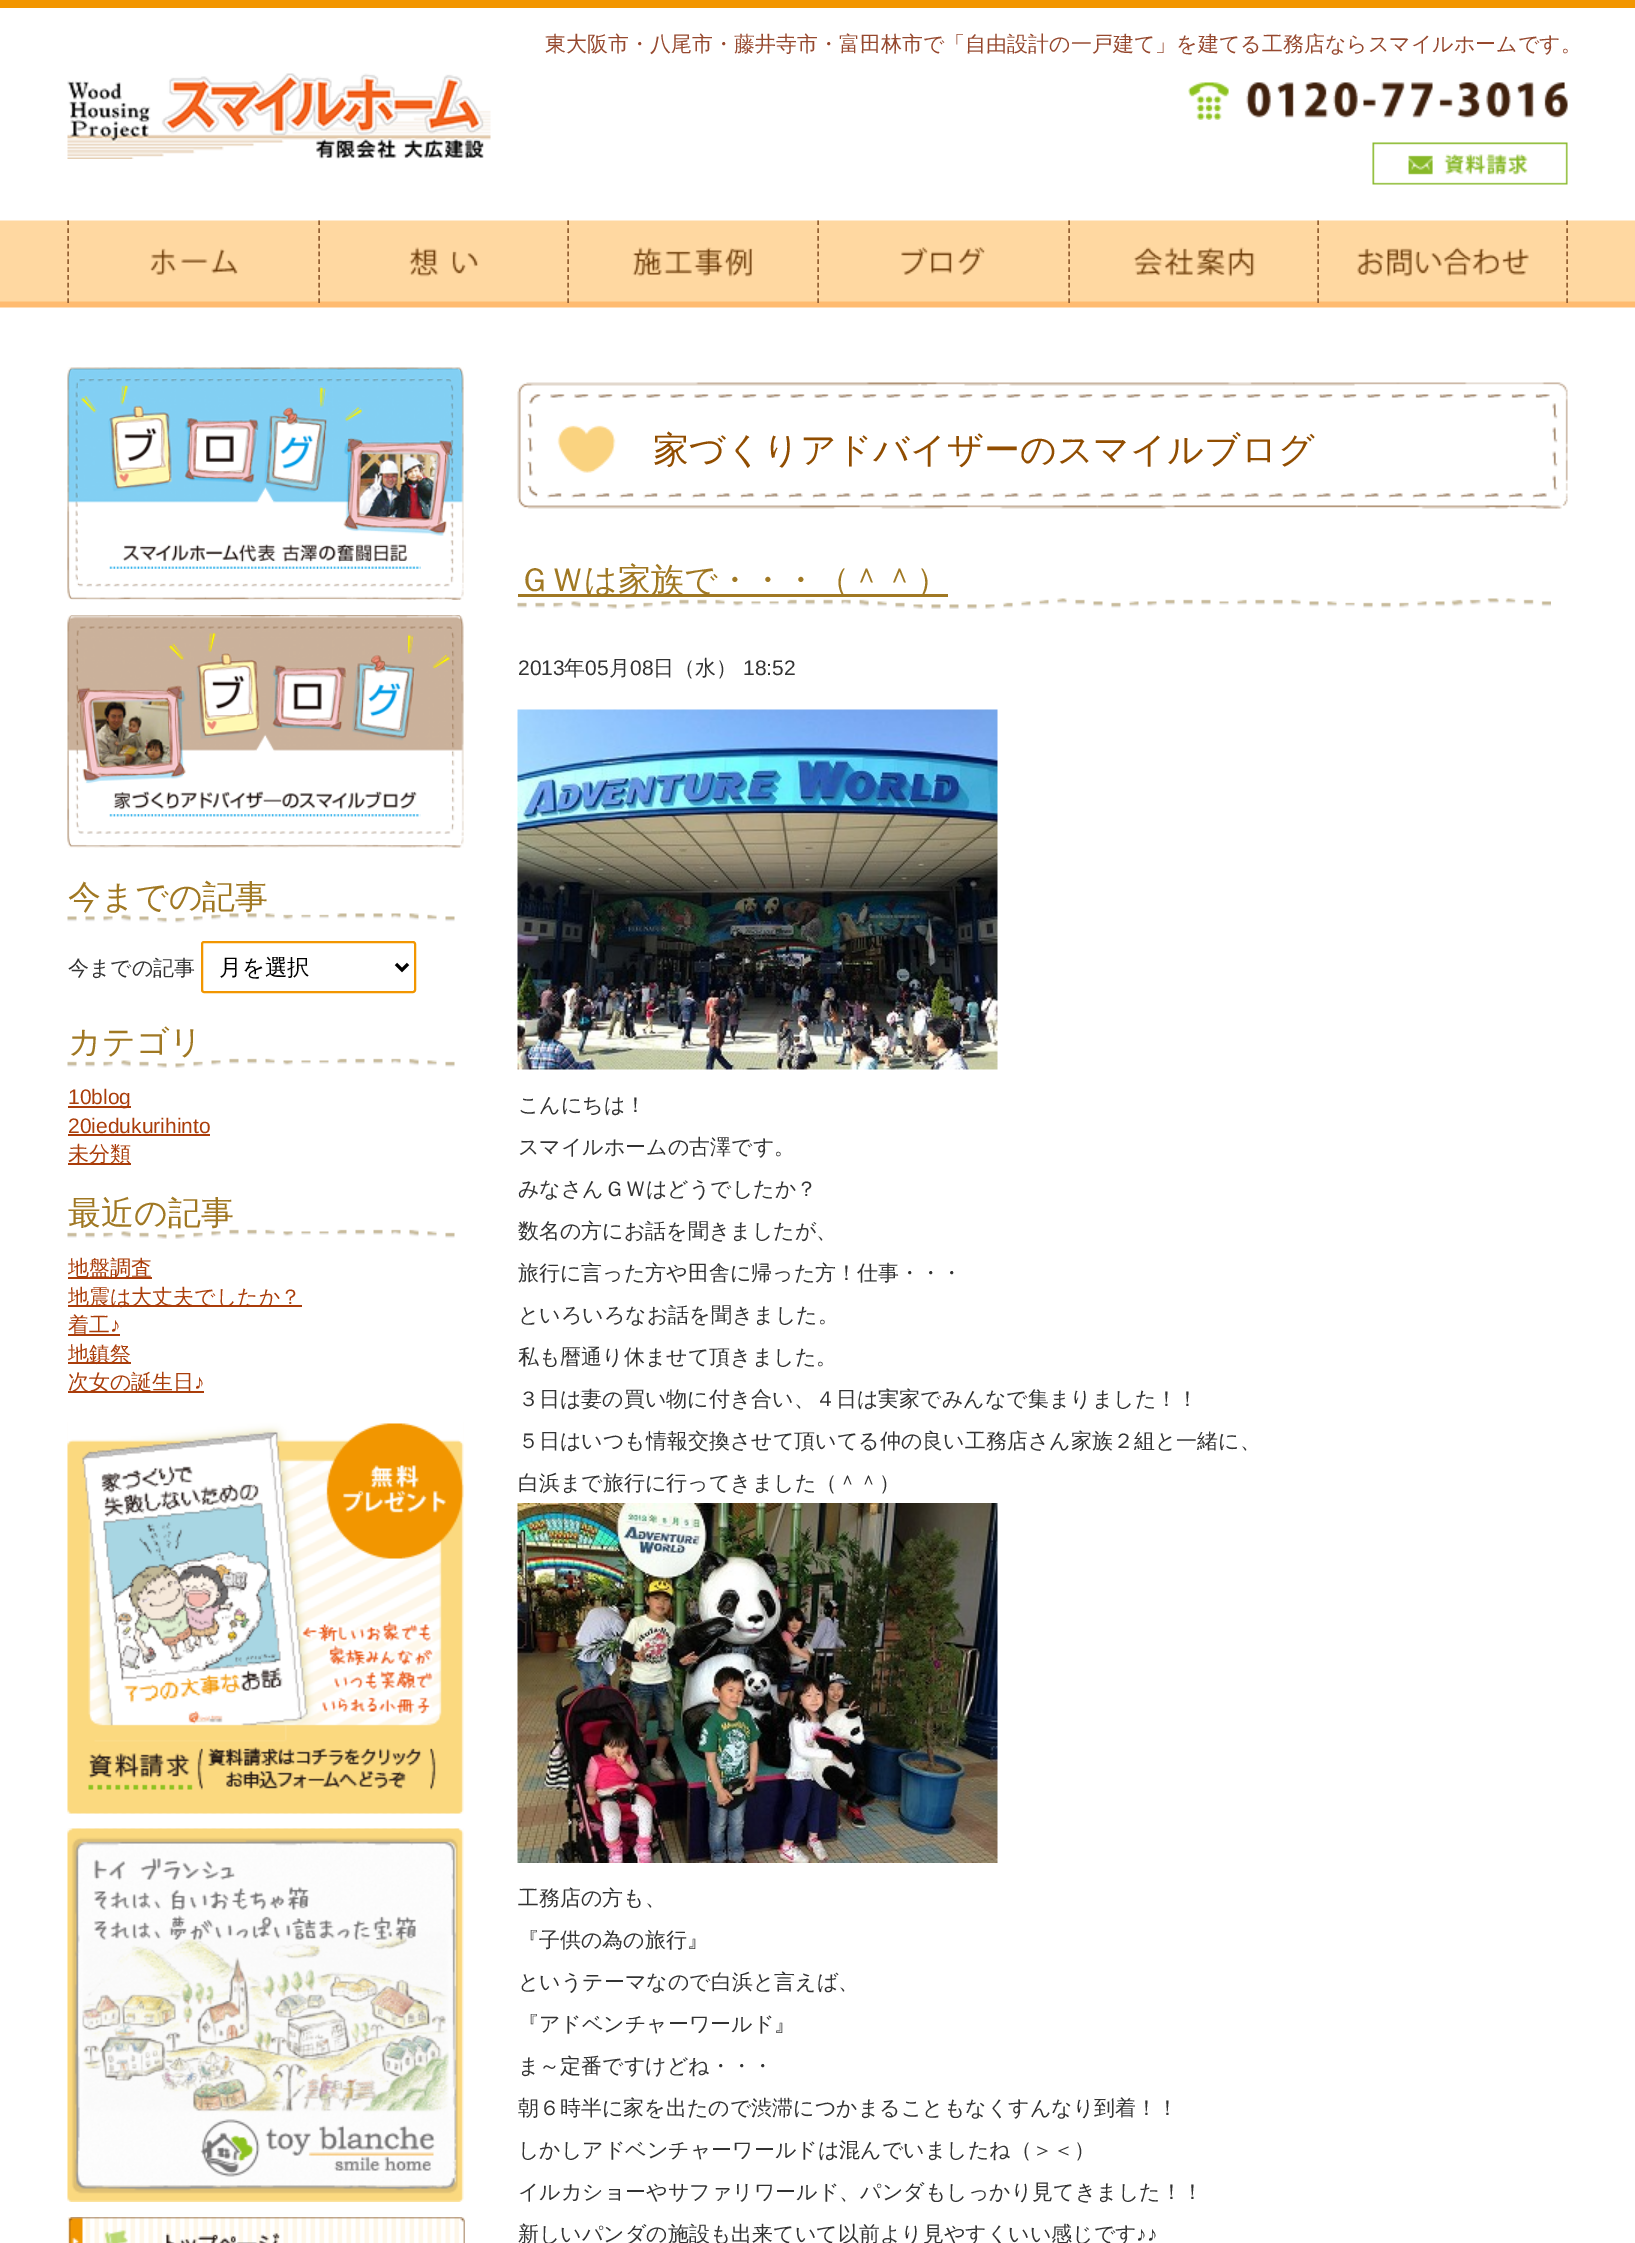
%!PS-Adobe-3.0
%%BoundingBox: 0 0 1635 2243
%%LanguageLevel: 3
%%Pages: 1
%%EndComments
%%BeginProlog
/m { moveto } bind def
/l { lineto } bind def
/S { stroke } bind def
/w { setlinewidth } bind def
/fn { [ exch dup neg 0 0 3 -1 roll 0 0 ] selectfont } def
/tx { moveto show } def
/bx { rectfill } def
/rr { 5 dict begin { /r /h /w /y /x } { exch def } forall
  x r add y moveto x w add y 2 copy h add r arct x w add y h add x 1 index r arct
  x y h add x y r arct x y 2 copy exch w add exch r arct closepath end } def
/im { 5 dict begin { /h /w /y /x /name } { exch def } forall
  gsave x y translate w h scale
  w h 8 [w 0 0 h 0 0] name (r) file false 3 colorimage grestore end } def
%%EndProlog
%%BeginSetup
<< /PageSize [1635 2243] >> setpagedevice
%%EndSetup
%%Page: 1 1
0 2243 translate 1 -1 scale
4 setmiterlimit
1 setgray
0 0 1635 2243 bx
0.949 0.588 0 setrgbcolor
0 0 1635 8 bx
/WenQuanYiZenHei-Medium 21 fn
0.588 0.282 0.18 setrgbcolor
(東大阪市・八尾市・藤井寺市・富田林市で「自由設計の一戸建て」を建てる工務店ならスマイルホームです。) 545 51 tx
(image0.raw) 67 73 424 86 im
(image1.raw) 1188 82 380 38 im
(image2.raw) 1372 142 196 43 im
(image3.raw) 0 220 1635 88 im
0.58 0.38 0.204 setrgbcolor
1.5 w
[4.5 3.3] 0 setdash
68 220.5 m 68 303 l S
(image4.raw) 150 248 88 27 im
319 220.5 m 319 303 l S
(image5.raw) 409 247 70 30 im
568 220.5 m 568 303 l S
(image6.raw) 632 247 121 30 im
818 220.5 m 818 303 l S
(image7.raw) 901 247 84 28 im
1069 220.5 m 1069 303 l S
(image8.raw) 1133 247 122 30 im
1567 220.5 m 1567 303 l S
1318 220.5 m 1318 303 l S
(image9.raw) 1357 247 172 30 im
(image10.raw) 67 367 397 233 im
(image11.raw) 67 367 397 233 im
(image12.raw) 67 615 397 233 im
(image13.raw) 67 615 397 233 im
(image14.raw) 67 913 388 10 im
/WenQuanYiZenHei-Medium 33 fn
0.627 0.471 0.137 setrgbcolor
(今までの記事) 68 908 tx
/WenQuanYiZenHei-Medium 21 fn
0.2 setgray
(今までの記事) 68 975 tx
0.949 0.588 0 setrgbcolor
2 w
[] 0 setdash
202 942 213 50 2 rr S
0 setgray
3 w
396 964 m 402 970 l 408 964 l S
/WenQuanYiZenHei-Medium 22.5 fn
(月を選択) 219 975 tx
(image15.raw) 67 1058 388 10 im
/WenQuanYiZenHei-Medium 33 fn
0.627 0.471 0.137 setrgbcolor
(カテゴリ) 68 1053 tx
0.667 0.239 0.039 setrgbcolor
68 1106 63 2 bx
/LiberationSans-Regular 21 fn
(10blog) 68 1104 tx
(20iedukurihinto) 68 1133 tx
68 1134 142 2 bx
68 1163 63 2 bx
/WenQuanYiZenHei-Medium 21 fn
(未分類) 68 1161 tx
(image15.raw) 67 1229 388 10 im
/WenQuanYiZenHei-Medium 33 fn
0.627 0.471 0.137 setrgbcolor
(最近の記事) 68 1224 tx
0.667 0.239 0.039 setrgbcolor
68 1277 84 2 bx
/WenQuanYiZenHei-Medium 21 fn
(地盤調査) 68 1275 tx
68 1305 234 2 bx
(地震は大丈夫でしたか？) 68 1304 tx
68 1334 52 2 bx
(着工) 68 1332 tx
/LiberationSans-Regular 21 fn
(♪) 110 1332 tx
68 1362 63 2 bx
/WenQuanYiZenHei-Medium 21 fn
(地鎮祭) 68 1361 tx
68 1391 136 2 bx
(次女の誕生日) 68 1389 tx
/LiberationSans-Regular 21 fn
(♪) 194 1389 tx
(image16.raw) 67 1422 397 392 im
(image17.raw) 67 1422 397 392 im
(image18.raw) 67 1828 397 374 im
(image19.raw) 67 1828 397 374 im
(image20.raw) 67 2217 397 26 im
(image21.raw) 68 2217 397 26 im
(image22.raw) 517 382 1051 127 im
/WenQuanYiZenHei-Medium 36 fn
0.569 0.302 0 setrgbcolor
(家づくりアドバイザーのスマイルブログ) 653 462 tx
(image23.raw) 517 598 1034 11 im
0.627 0.471 0.137 setrgbcolor
518 594 430 3 bx
/WenQuanYiZenHei-Medium 33 fn
(ＧＷは家族で・・・（＾＾）) 518 591 tx
/LiberationSans-Regular 21 fn
0.2 setgray
(2013) 518 675 tx
/WenQuanYiZenHei-Medium 21 fn
(年) 564 675 tx
/LiberationSans-Regular 21 fn
(05) 585 675 tx
/WenQuanYiZenHei-Medium 21 fn
(月) 609 675 tx
/LiberationSans-Regular 21 fn
(08) 630 675 tx
/WenQuanYiZenHei-Medium 21 fn
(日（水）) 653 675 tx
/LiberationSans-Regular 21 fn
(18:52) 743 675 tx
(image24.raw) 517 709 481 361 im
/WenQuanYiZenHei-Medium 21 fn
(こんにちは！) 518 1112 tx
(スマイルホームの古澤です。) 518 1154 tx
(みなさんＧＷはどうでしたか？) 518 1196 tx
(数名の方にお話を聞きましたが、) 518 1238 tx
(旅行に言った方や田舎に帰った方！仕事・・・) 518 1280 tx
(といろいろなお話を聞きました。) 518 1322 tx
(私も暦通り休ませて頂きました。) 518 1364 tx
(３日は妻の買い物に付き合い、４日は実家でみんなで集まりました！！) 518 1406 tx
(５日はいつも情報交換させて頂いてる仲の良い工務店さん家族２組と一緒に、) 518 1448 tx
(白浜まで旅行に行ってきました（＾＾）) 518 1490 tx
(image25.raw) 517 1503 481 360 im
(工務店の方も、) 518 1905 tx
(『子供の為の旅行』) 518 1947 tx
(というテーマなので白浜と言えば、) 518 1989 tx
(『アドベンチャーワールド』) 518 2031 tx
(ま～定番ですけどね・・・) 518 2073 tx
(朝６時半に家を出たので渋滞につかまることもなくすんなり到着！！) 518 2115 tx
(しかしアドベンチャーワールドは混んでいましたね（＞＜）) 518 2157 tx
(イルカショーやサファリワールド、パンダもしっかり見てきました！！) 518 2199 tx
(新しいパンダの施設も出来ていて以前より見やすくいい感じです) 518 2241 tx
/LiberationSans-Regular 21 fn
(♪♪) 1136 2241 tx
showpage
%%EOF
